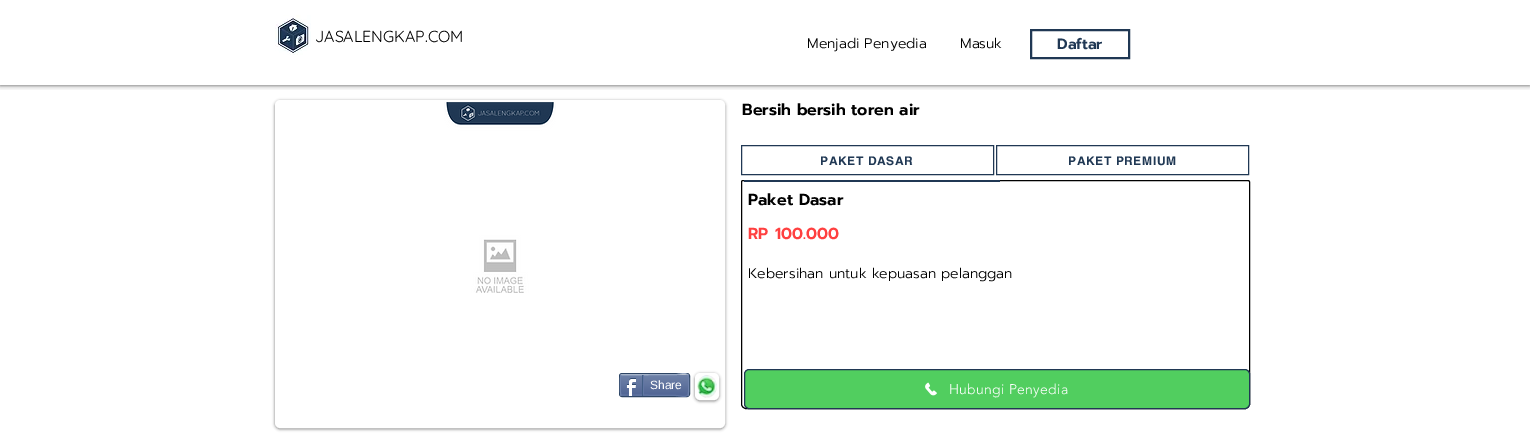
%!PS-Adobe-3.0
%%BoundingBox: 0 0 1530 436
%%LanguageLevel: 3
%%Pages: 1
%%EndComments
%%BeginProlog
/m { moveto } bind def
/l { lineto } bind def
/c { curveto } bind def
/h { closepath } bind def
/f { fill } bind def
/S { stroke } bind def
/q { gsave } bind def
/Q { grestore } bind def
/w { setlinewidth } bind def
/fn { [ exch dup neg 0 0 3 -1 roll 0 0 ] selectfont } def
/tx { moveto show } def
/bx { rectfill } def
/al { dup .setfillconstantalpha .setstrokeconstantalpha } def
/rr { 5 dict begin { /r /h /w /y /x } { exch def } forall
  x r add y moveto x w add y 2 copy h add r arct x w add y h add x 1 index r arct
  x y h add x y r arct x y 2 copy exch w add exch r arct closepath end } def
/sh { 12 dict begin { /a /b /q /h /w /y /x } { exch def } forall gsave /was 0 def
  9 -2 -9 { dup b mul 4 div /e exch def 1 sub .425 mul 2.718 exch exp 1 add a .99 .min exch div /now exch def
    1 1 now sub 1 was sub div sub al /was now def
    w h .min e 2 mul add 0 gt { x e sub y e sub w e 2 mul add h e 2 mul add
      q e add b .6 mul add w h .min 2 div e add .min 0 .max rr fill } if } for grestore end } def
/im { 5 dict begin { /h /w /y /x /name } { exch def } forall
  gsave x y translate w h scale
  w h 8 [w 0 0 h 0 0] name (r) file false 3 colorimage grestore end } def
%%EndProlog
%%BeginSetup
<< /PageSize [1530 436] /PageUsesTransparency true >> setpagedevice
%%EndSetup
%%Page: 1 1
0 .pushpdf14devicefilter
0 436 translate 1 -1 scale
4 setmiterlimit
1 setgray
0 0 1530 436 bx
q
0 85 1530 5 rectclip
0 setgray
0 0 1530 85 0 2.5 0.7 sh
Q
(image0.raw) 275 15 36 40 im
/Quicksand-Regular 16 fn
0 setgray
(JASALENGKAP.COM) 315 42 tx
/Prompt-Light 14 fn
(Menjadi Penyedia) 807 48 tx
(Masuk) 960 48 tx
0.125 0.22 0.329 setrgbcolor
2 w
1031 30 98 28 rectstroke
/Prompt-SemiBold 15 fn
(Daftar) 1057 49 tx
0 setgray
275 101 450 328 5 1.5 0.5 sh
1 setgray
276 101 448 326 4 rr q f Q
S
(image1.raw) 444 102 112 191 im
0 setgray
695 374 24 27 5 1.5 0.5 sh
0.176 0.271 0.396 setrgbcolor
1 w
619.5 373.5 70 23 2.5 rr S
(image2.raw) 620 375 69 21 im
0.604 0.671 0.776 setrgbcolor
621 375 m 676 374.5 l 680 374.5 685 372 688 375 c S
0.435 0.514 0.678 setrgbcolor
688 375 m 689 375.5 689 394.5 688 395 c S
0.38 0.463 0.639 setrgbcolor
688 395 m 685 398 680 395.5 676 395.5 c 621 395 l S
0.435 0.514 0.678 setrgbcolor
621 395 m 620 394.5 620 375.5 621 375 c S
(image3.raw) 626 378 10 18 im
0.259 0.369 0.522 setrgbcolor
642 375 1 21 bx
/LiberationSans-Regular 12 fn
1 setgray
(Share) 650 389 tx
0.38 0.463 0.639 setrgbcolor
643 375 1 20 bx
1 setgray
696 374 22 25 4 rr q f Q
2 w
S
(image4.raw) 697 375 20 23 im
/Prompt-SemiBold 16 fn
0 setgray
(Bersih bersih toren air) 742 115 tx
0.125 0.22 0.329 setrgbcolor
1 w
741.5 145.5 252 29 rectstroke
/helvetica-Bold 12 fn
820 165 m 0.6 0 (PAKET DASAR) ashow
996.5 145.5 252 29 rectstroke
1068 165 m 0.6 0 (PAKET PREMIUM) ashow
0 setgray
743 180.5 m 1248 180.5 l 1249 180.5 1249.5 181 1249.5 182 c 1249.5 404 l 1249.5 406.5 1247.5 408.5 1245 408.5 c 746 408.5 l 743.5 408.5 741.5 406.5 741.5 404 c 741.5 182 l 741.5 181 742 180.5 743 180.5 c h S
0.125 0.22 0.329 setrgbcolor
744 180 256 2 bx
/Prompt-SemiBold 16 fn
0 setgray
(Paket Dasar) 748 205 tx
1 0.251 0.251 setrgbcolor
(RP) 748 239 tx
(100.000) 775 239 tx
/Prompt-Light 14 fn
0 setgray
(Kebersihan untuk kepuasan pelanggan) 748 278 tx
0.318 0.808 0.373 setrgbcolor
744.5 369.5 505 39 4.5 rr q f Q
0.125 0.22 0.329 setrgbcolor
S
(image5.raw) 925 382 12 14 im
/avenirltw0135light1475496-Light 14 fn
1 setgray
949 394 m 0.3 0 (Hubungi Penyedia) ashow
.poppdf14devicefilter showpage
%%EOF
